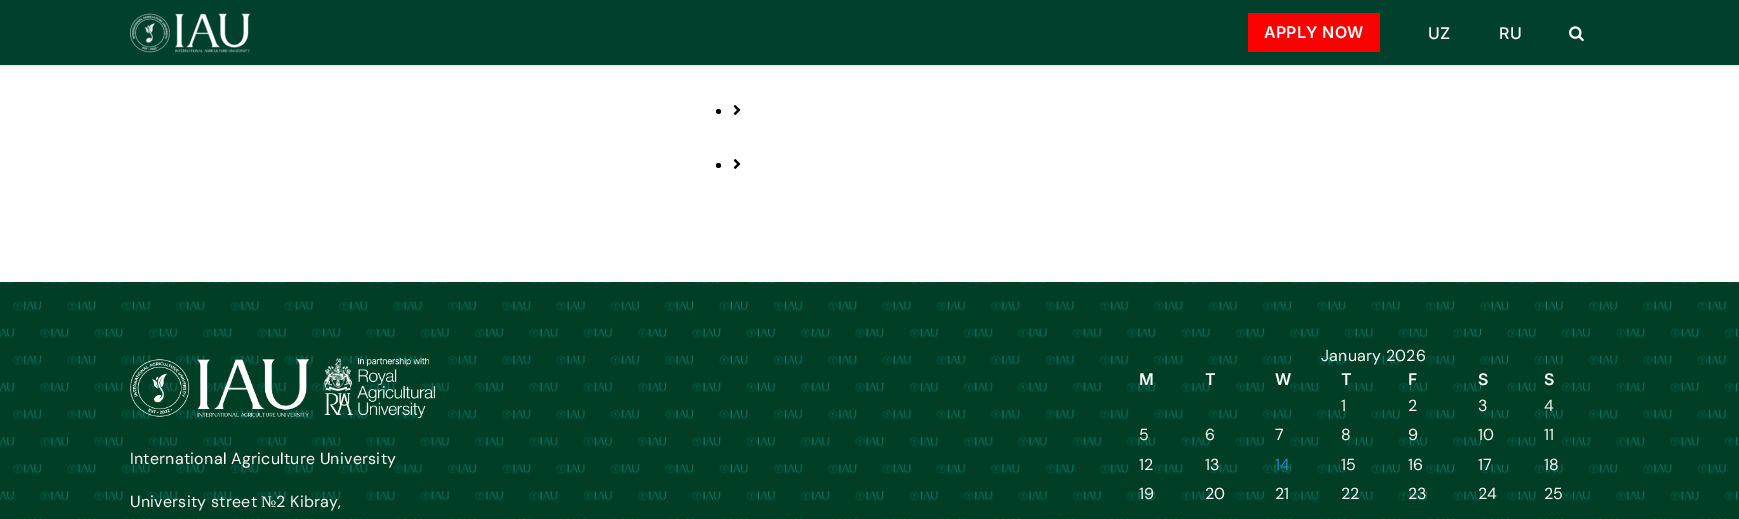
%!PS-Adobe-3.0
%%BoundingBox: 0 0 1739 519
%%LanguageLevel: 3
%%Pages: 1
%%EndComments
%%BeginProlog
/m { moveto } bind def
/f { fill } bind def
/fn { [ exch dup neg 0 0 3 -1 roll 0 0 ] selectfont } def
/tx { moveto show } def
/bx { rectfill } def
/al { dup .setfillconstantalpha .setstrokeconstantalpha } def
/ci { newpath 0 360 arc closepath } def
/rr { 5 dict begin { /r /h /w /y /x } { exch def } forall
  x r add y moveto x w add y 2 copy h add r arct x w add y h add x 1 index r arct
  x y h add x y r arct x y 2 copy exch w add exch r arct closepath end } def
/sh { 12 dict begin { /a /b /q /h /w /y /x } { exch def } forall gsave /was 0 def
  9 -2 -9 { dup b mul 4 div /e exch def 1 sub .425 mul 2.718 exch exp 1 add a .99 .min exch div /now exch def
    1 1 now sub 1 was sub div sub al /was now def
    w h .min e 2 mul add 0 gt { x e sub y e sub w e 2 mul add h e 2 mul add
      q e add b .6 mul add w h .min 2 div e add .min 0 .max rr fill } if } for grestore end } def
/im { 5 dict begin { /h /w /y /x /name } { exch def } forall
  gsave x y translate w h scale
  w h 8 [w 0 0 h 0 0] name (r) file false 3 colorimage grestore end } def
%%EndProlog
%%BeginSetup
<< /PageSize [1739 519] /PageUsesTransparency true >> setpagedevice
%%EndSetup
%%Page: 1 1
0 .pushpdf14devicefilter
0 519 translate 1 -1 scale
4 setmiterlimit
1 setgray
0 0 1739 519 bx
0 setgray
0 1 1739 65 0 1.5 0.12 sh
0 0.251 0.173 setrgbcolor
0 0 1739 65 bx
(image0.raw) 130 13 120 40 im
0.988 0 0 setrgbcolor
1248 13 132 39 bx
/Inter-SemiBold 16 fn
1 setgray
1264 38 m 0.25 0 (APPLY NOW) ashow
/Inter-Medium 16 fn
1428 39 m 0.25 0 (UZ) ashow
1499 39 m 0.25 0 (RU) ashow
(image1.raw) 1569 26 15 16 im
0 setgray
718.5 111.5 2.5 ci f
(image2.raw) 733 105 8 10 im
718.5 165.5 2.5 ci f
(image2.raw) 733 159 8 10 im
(image3.raw) 0 282 1739 237 im
(image4.raw) 130 359 179 58 im
(image5.raw) 324 358 111 60 im
/DMSans-Regular 16 fn
1 setgray
130 464 m 0.25 0 (International Agriculture University) ashow
130 507 m 0.25 0 (University street) ashow
/LiberationSerif-Regular 16 fn
261 507 m 0.25 0 (№) ashow
/DMSans-Regular 16 fn
276 507 m 0.25 0 (2 Kibray,) ashow
1321 361 m 0.25 0 (January 2026) ashow
/Inter-SemiBold 16 fn
(M) 1139 385 tx
(T) 1205 385 tx
(W) 1275 385 tx
(T) 1341 385 tx
(F) 1408 385 tx
(S) 1478 385 tx
(S) 1544 385 tx
/DMSans-Regular 16 fn
1341 411 m 0.25 0 (1) ashow
1408 411 m 0.25 0 (2) ashow
1478 411 m 0.25 0 (3) ashow
1544 411 m 0.25 0 (4) ashow
1139 440 m 0.25 0 (5) ashow
1205 440 m 0.25 0 (6) ashow
1275 440 m 0.25 0 (7) ashow
1341 440 m 0.25 0 (8) ashow
1408 440 m 0.25 0 (9) ashow
1478 440 m 0.25 0 (10) ashow
1544 440 m 0.25 0 (11) ashow
1139 470 m 0.25 0 (12) ashow
1205 470 m 0.25 0 (13) ashow
0.098 0.561 0.851 setrgbcolor
1275 470 m 0.25 0 (14) ashow
1 setgray
1341 470 m 0.25 0 (15) ashow
1408 470 m 0.25 0 (16) ashow
1478 470 m 0.25 0 (17) ashow
1544 470 m 0.25 0 (18) ashow
1139 499 m 0.25 0 (19) ashow
1205 499 m 0.25 0 (20) ashow
1275 499 m 0.25 0 (21) ashow
1341 499 m 0.25 0 (22) ashow
1408 499 m 0.25 0 (23) ashow
1478 499 m 0.25 0 (24) ashow
1544 499 m 0.25 0 (25) ashow
.poppdf14devicefilter showpage
%%EOF
